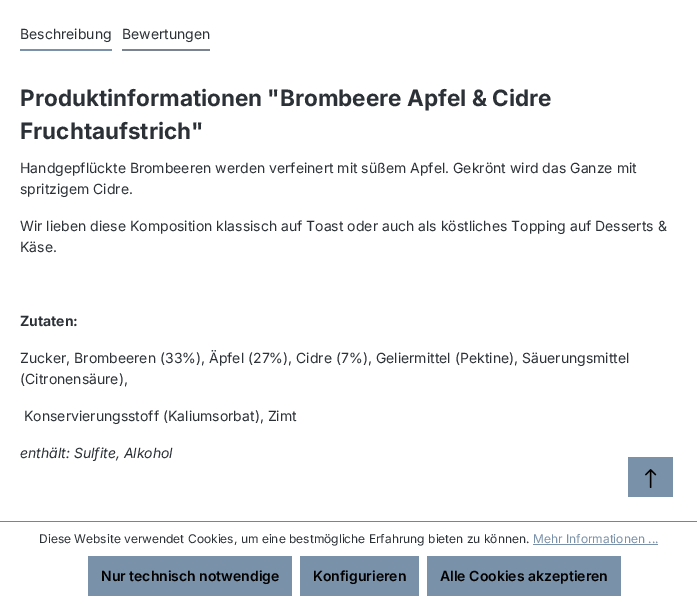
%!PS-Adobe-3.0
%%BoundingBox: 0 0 697 604
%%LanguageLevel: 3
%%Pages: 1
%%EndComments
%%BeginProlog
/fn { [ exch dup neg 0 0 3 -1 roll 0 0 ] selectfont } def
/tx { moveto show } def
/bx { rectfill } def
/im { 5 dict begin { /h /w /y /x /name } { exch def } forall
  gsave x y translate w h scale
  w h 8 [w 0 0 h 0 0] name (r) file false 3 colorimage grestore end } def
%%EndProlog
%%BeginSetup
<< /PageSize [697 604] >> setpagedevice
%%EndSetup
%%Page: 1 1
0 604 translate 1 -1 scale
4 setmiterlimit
1 setgray
0 0 697 604 bx
0.475 0.569 0.663 setrgbcolor
20 49 92 2 bx
/Inter-Regular 14 fn
0.169 0.192 0.212 setrgbcolor
(Beschreibung) 20 39 tx
0.475 0.518 0.565 setrgbcolor
122 49 88 2 bx
0.169 0.192 0.212 setrgbcolor
(Bewertungen) 122 39 tx
/Inter-Bold 22.5 fn
(Produktinformationen "Brombeere Apfel & Cidre) 20 106 tx
(Fruchtaufstrich") 20 139 tx
/Inter-Regular 14 fn
(Handgepflückte Brombeeren werden verfeinert mit süßem Apfel. Gekrönt wird das Ganze mit) 20 173 tx
(spritzigem Cidre.) 20 194 tx
(Wir lieben diese Komposition klassisch auf Toast oder auch als köstliches Topping auf Desserts &) 20 231 tx
(Käse.) 20 252 tx
/Inter-Bold 14 fn
(Zutaten:) 20 326 tx
/Inter-Regular 14 fn
(Zucker, Brombeeren \(33%\), Äpfel \(27%\), Cidre \(7%\), Geliermittel \(Pektine\), Säuerungsmittel) 20 363 tx
(\(Citronensäure\),) 20 384 tx
(Konservierungsstoff \(Kaliumsorbat\), Zimt) 24 421 tx
/Inter-Italic 14 fn
(enthält: Sulfite, Alkohol) 20 458 tx
0.475 0.569 0.663 setrgbcolor
628 457 45 40 bx
(image0.raw) 645 469 12 19 im
0.475 0.518 0.565 setrgbcolor
0 521 697 1 bx
/Inter-Regular 12 fn
0.169 0.192 0.212 setrgbcolor
(Diese Website verwendet Cookies, um eine bestmögliche Erfahrung bieten zu können.) 39 543 tx
0.475 0.569 0.663 setrgbcolor
(Mehr Informationen ...) 533 543 tx
533 544 125 1 bx
88 556 204 40 bx
/Inter-SemiBold 14 fn
0 setgray
(Nur technisch notwendige) 101 581 tx
0.475 0.569 0.663 setrgbcolor
300 556 119 40 bx
0 setgray
(Konfigurieren) 313 581 tx
0.475 0.569 0.663 setrgbcolor
427 556 194 40 bx
0 setgray
(Alle Cookies akzeptieren) 440 581 tx
showpage
%%EOF
